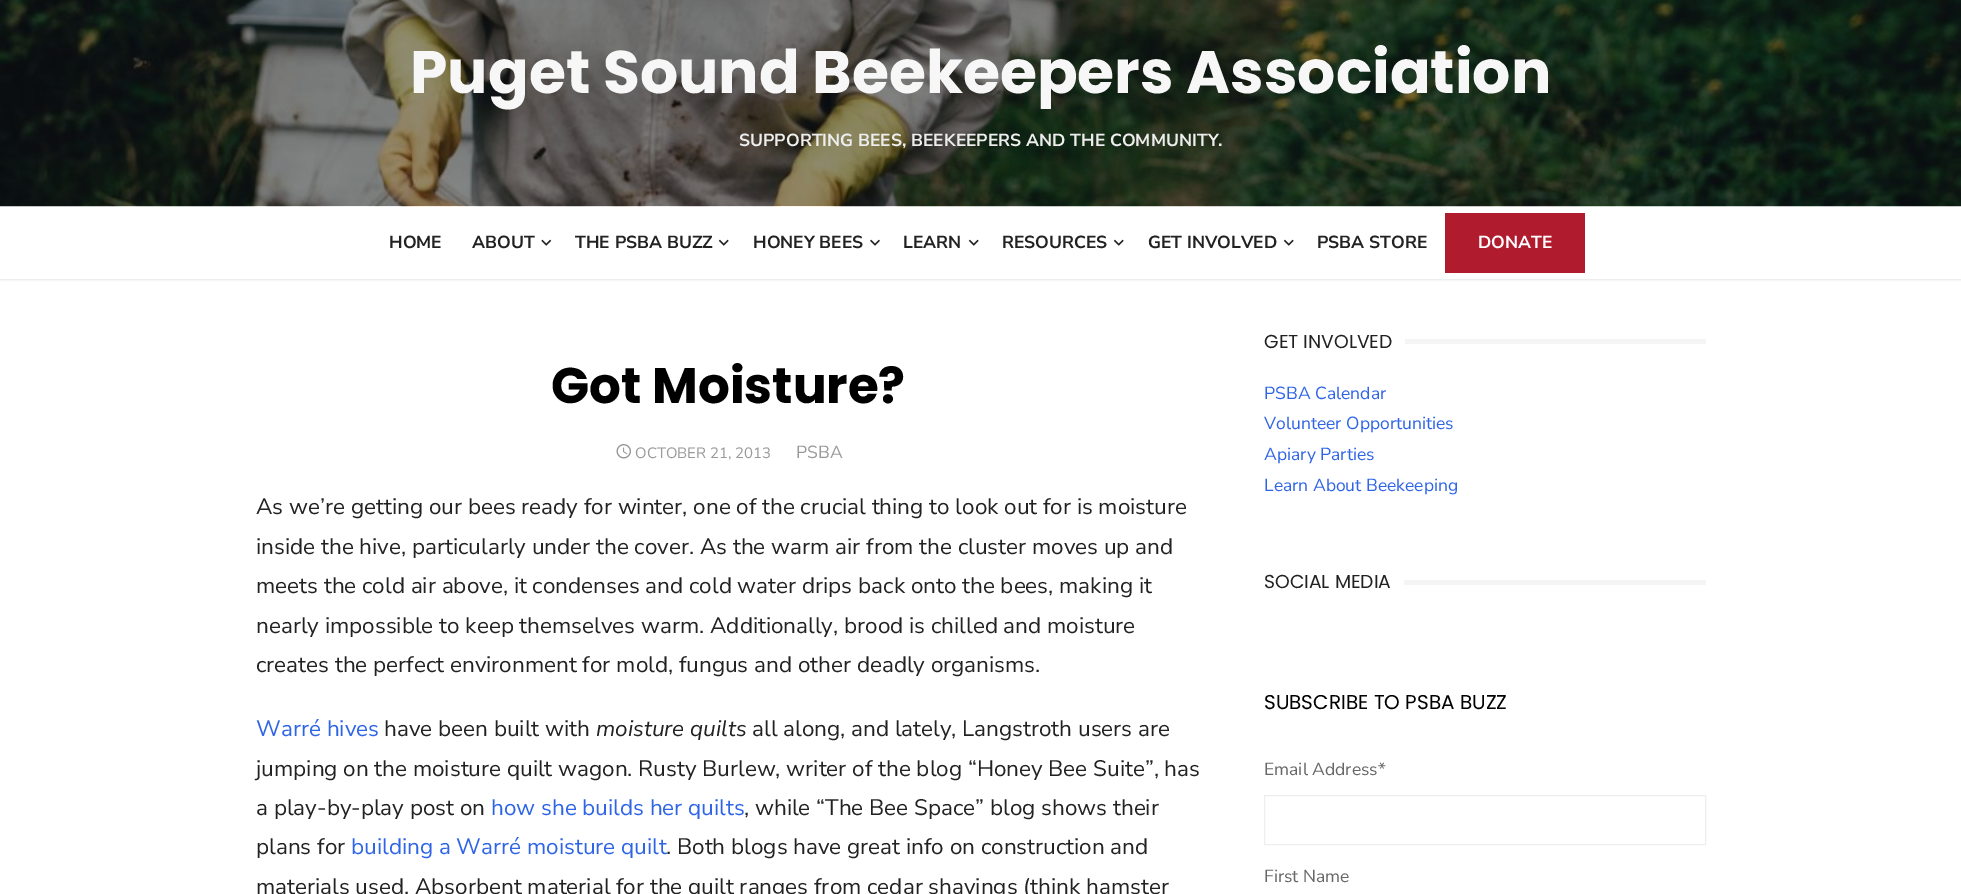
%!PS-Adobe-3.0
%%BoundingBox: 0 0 1961 894
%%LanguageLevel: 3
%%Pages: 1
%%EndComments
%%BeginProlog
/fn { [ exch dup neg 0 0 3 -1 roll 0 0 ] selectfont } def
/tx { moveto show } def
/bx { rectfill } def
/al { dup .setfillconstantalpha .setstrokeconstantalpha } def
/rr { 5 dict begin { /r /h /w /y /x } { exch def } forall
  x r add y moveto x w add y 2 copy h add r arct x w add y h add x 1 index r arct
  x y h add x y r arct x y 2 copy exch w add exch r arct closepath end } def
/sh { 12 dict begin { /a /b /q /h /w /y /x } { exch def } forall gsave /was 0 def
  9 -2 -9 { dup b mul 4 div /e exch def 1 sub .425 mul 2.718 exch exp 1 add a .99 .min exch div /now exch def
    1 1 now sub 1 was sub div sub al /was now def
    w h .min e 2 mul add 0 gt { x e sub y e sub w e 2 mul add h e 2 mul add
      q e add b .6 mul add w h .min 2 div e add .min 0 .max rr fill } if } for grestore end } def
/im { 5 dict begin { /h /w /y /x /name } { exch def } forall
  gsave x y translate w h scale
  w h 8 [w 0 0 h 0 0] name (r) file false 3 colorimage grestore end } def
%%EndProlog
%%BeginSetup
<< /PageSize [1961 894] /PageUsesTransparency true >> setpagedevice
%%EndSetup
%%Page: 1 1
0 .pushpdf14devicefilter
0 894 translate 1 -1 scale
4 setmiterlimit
1 setgray
0 0 1961 894 bx
0 setgray
0 208 1961 72 0 1 0.1 sh
(image0.raw) 0 0 1961 207 im
/Poppins-Bold 60 fn
0.969 setgray
(Puget Sound Beekeepers Association) 410 93 tx
/NunitoSans-Bold 17.5 fn
0.929 setgray
(SUPPORTING BEES, BEEKEEPERS AND THE COMMUNITY.) 739 146 tx
1 setgray
0 207 1961 72 bx
0.133 setgray
(HOME) 389 248 tx
(ABOUT) 472 248 tx
(image1.raw) 541 239 11 7 im
(THE PSBA BUZZ) 575 248 tx
(image2.raw) 718 239 11 7 im
(HONEY BEES) 753 248 tx
(image3.raw) 870 239 10 7 im
(LEARN) 903 248 tx
(image2.raw) 968 239 11 7 im
(RESOURCES) 1002 248 tx
(image2.raw) 1113 239 11 7 im
(GET INVOLVED) 1148 248 tx
(image2.raw) 1283 239 11 7 im
(PSBA STORE) 1317 248 tx
0.69 0.106 0.18 setrgbcolor
1445 213 140 60 bx
1 setgray
(DONATE) 1478 248 tx
/Poppins-Bold 50 fn
0 setgray
(Got Moisture?) 551 403 tx
(image4.raw) 616 444 15 15 im
/NunitoSans-Regular 15 fn
0.6 setgray
(OCTOBER 21, 2013) 635 458 tx
/NunitoSans-Regular 17.5 fn
(PSBA) 796 458 tx
/NunitoSans-Regular 22.5 fn
0.133 setgray
(As we’re getting our bees ready for winter, one of the crucial thing to look out for is moisture) 256 514 tx
(inside the hive, particularly under the cover. As the warm air from the cluster moves up and) 256 554 tx
(meets the cold air above, it condenses and cold water drips back onto the bees, making it) 256 593 tx
(nearly impossible to keep themselves warm. Additionally, brood is chilled and moisture) 256 633 tx
(creates the perfect environment for mold, fungus and other deadly organisms.) 256 672 tx
0.18 0.392 0.902 setrgbcolor
(Warré hives) 256 736 tx
0.133 setgray
(have been built with) 384 736 tx
/NunitoSans-Italic 22.5 fn
(moisture quilts) 596 736 tx
/NunitoSans-Regular 22.5 fn
(all along, and lately, Langstroth users are) 752 736 tx
(jumping on the moisture quilt wagon. Rusty Burlew, writer of the blog “Honey Bee Suite”, has) 256 776 tx
(a play-by-play post on) 256 815 tx
0.18 0.392 0.902 setrgbcolor
(how she builds her quilts) 491 815 tx
0.133 setgray
(, while “The Bee Space” blog shows their) 744 815 tx
(plans for) 256 854 tx
0.18 0.392 0.902 setrgbcolor
(building a Warré moisture quilt) 351 854 tx
0.133 setgray
(. Both blogs have great info on construction and) 666 854 tx
(materials used. Absorbent material for the quilt ranges from cedar shavings \(think hamster) 256 894 tx
/Poppins-Regular 18.75 fn
(GET INVOLVED) 1264 348 tx
0.961 setgray
1405 339 301 5 bx
/NunitoSans-Regular 17.5 fn
0.18 0.392 0.902 setrgbcolor
(PSBA Calendar) 1264 399 tx
(Volunteer Opportunities) 1264 429 tx
(Apiary Parties) 1264 460 tx
(Learn About Beekeeping) 1264 491 tx
/Poppins-Regular 18.75 fn
0.133 setgray
(SOCIAL MEDIA) 1264 588 tx
0.961 setgray
1404 580 302 5 bx
/Poppins-Regular 20 fn
0 setgray
(SUBSCRIBE TO PSBA BUZZ) 1264 709 tx
/NunitoSans-Regular 17.5 fn
0.4 setgray
(Email Address*) 1264 775 tx
0.933 setgray
1264.5 795.5 441 49 rectstroke
0.4 setgray
(First Name) 1264 882 tx
.poppdf14devicefilter showpage
%%EOF
